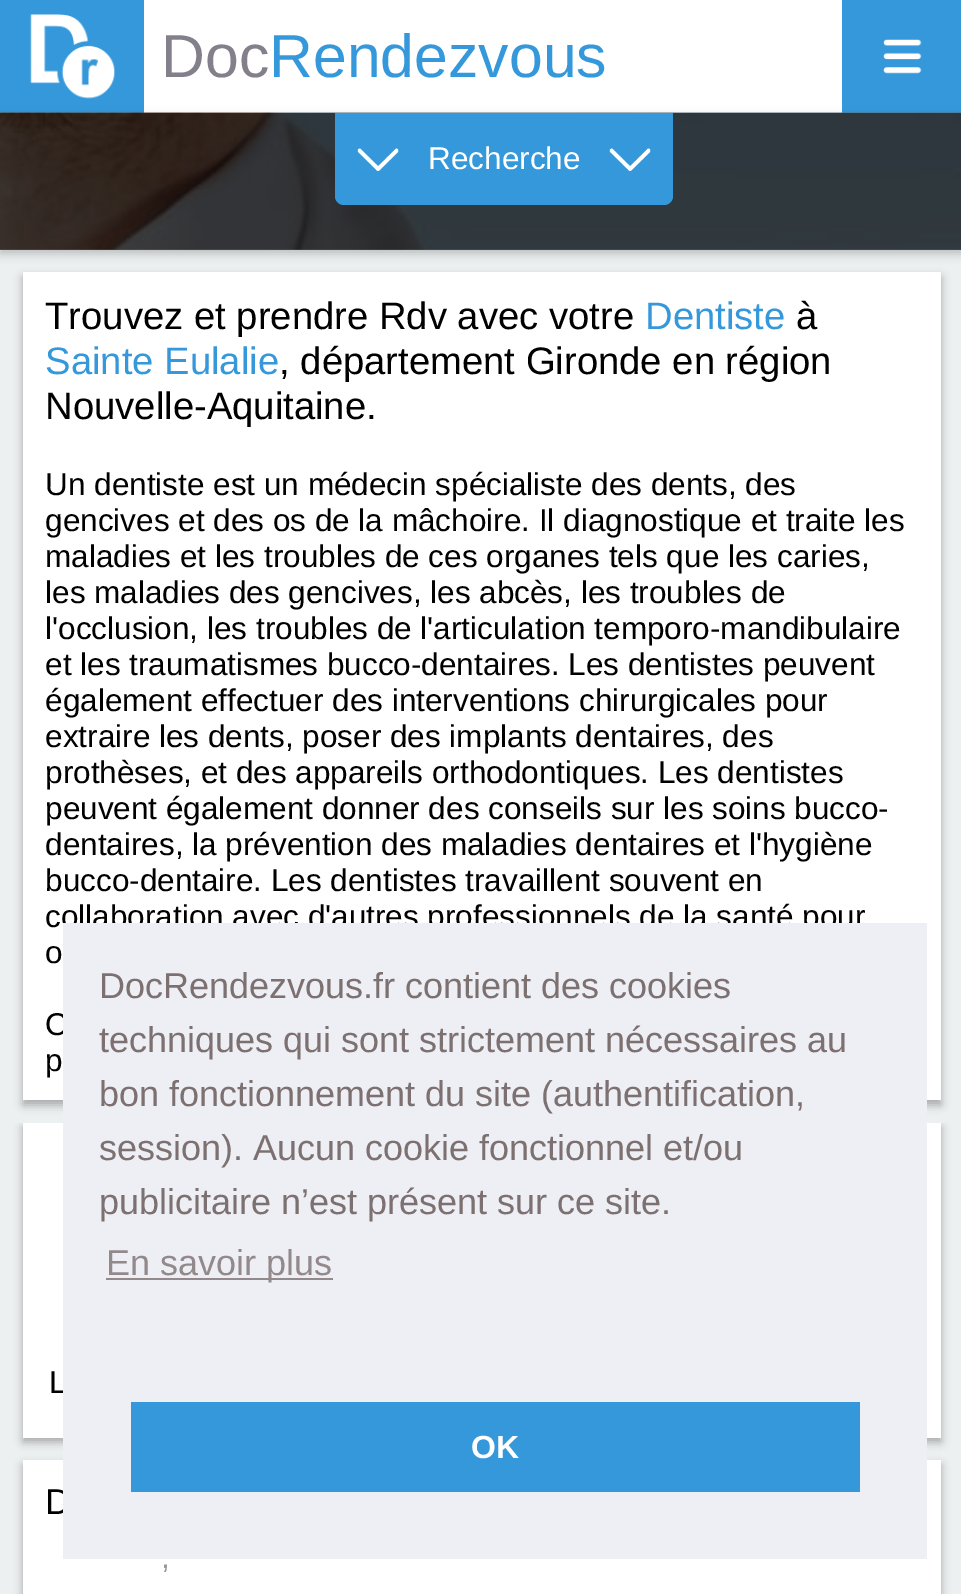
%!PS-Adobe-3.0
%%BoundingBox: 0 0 961 1594
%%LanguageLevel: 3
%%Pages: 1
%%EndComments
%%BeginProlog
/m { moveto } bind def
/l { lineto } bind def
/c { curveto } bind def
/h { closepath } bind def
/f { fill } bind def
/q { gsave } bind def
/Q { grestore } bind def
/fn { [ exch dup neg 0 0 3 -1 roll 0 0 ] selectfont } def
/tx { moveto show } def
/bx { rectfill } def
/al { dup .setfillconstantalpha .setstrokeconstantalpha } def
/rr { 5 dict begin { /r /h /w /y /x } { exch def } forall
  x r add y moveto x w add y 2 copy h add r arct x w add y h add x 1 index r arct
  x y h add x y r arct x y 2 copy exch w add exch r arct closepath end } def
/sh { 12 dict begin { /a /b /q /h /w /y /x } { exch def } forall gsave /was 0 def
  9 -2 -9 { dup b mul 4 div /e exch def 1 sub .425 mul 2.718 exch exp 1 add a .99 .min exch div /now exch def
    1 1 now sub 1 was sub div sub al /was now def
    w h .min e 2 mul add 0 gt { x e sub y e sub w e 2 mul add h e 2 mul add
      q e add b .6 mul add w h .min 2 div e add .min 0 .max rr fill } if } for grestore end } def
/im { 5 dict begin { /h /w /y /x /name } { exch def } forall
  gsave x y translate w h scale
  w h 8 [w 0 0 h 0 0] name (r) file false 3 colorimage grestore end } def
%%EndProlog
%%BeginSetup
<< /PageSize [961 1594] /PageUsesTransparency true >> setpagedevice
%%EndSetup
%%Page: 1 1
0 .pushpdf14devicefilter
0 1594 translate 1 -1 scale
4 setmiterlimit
0.925 0.941 0.945 setrgbcolor
0 0 961 1594 bx
1 setgray
144 0 698 113 bx
0.204 0.596 0.859 setrgbcolor
0 0 144 113 bx
(image0.raw) 30 14 85 85 im
/LiberationSans-Regular 60.75 fn
0.514 0.502 0.545 setrgbcolor
(Doc) 161 77 tx
0.204 0.596 0.859 setrgbcolor
(Rendezvous) 269 77 tx
842 0 119 113 bx
(image1.raw) 883 39 39 35 im
0 setgray
0 117 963 137 0 4.5 0.2 sh
(image2.raw) 0 112 961 138 im
0.5 al
0 113 961 137 bx
1 al
0.204 0.596 0.859 setrgbcolor
335 113 m 673 113 l 673 196 l 673 201 669 205 664 205 c 344 205 l 339 205 335 201 335 196 c h f
(image3.raw) 357 148 42 23 im
/LiberationSans-Regular 31.5 fn
1 setgray
(Recherche) 428 169 tx
(image3.raw) 609 148 42 23 im
0 setgray
23 277 918 828 0 4.5 0.3 sh
1 setgray
23 272 918 828 bx
/LiberationSans-Regular 38.25 fn
0 setgray
(Trouvez et prendre Rdv avec votre) 45 329 tx
0.204 0.596 0.859 setrgbcolor
(Dentiste) 645 329 tx
0 setgray
(à) 796 329 tx
0.204 0.596 0.859 setrgbcolor
(Sainte Eulalie) 45 374 tx
0 setgray
(, département Gironde en région) 279 374 tx
(Nouvelle-Aquitaine.) 45 419 tx
/LiberationSans-Regular 31.5 fn
(Un dentiste est un médecin spécialiste des dents, des) 45 495 tx
(gencives et des os de la mâchoire. Il diagnostique et traite les) 45 531 tx
(maladies et les troubles de ces organes tels que les caries,) 45 567 tx
(les maladies des gencives, les abcès, les troubles de) 45 603 tx
(l'occlusion, les troubles de l'articulation temporo-mandibulaire) 45 639 tx
(et les traumatismes bucco-dentaires. Les dentistes peuvent) 45 675 tx
(également effectuer des interventions chirurgicales pour) 45 711 tx
(extraire les dents, poser des implants dentaires, des) 45 747 tx
(prothèses, et des appareils orthodontiques. Les dentistes) 45 783 tx
(peuvent également donner des conseils sur les soins bucco-) 45 819 tx
(dentaires, la prévention des maladies dentaires et l'hygiène) 45 855 tx
(bucco-dentaire. Les dentistes travaillent souvent en) 45 891 tx
(collaboration avec d'autres professionnels de la santé pour) 45 927 tx
(o) 45 963 tx
(C) 45 1035 tx
(p) 45 1071 tx
q
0 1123 m 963 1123 l 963 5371 l 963 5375 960 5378 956 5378 c 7 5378 l 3 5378 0 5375 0 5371 c h clip newpath
23 1127 918 315 0 4.5 0.3 sh
Q
1 setgray
23 1123 918 315 bx
0 setgray
(L) 49 1393 tx
23 1465 918 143 0 4.5 0.3 sh
1 setgray
23 1460 918 134 bx
/LiberationSans-Regular 36 fn
0 setgray
(D) 45 1514 tx
/LiberationSans-Regular 31.5 fn
0.6 setgray
(,) 161 1568 tx
0.929 0.937 0.961 setrgbcolor
63 923 864 636 bx
/LiberationSans-Regular 36 fn
0.49 0.439 0.439 setrgbcolor
(DocRendezvous.fr contient des cookies) 99 998 tx
(techniques qui sont strictement nécessaires au) 99 1052 tx
(bon fonctionnement du site \(authentification,) 99 1106 tx
(session\). Aucun cookie fonctionnel et/ou) 99 1160 tx
(publicitaire n’est présent sur ce site.) 99 1214 tx
0.576 0.537 0.545 setrgbcolor
106 1278 227 2 bx
(En savoir plus) 106 1275 tx
0.204 0.596 0.859 setrgbcolor
131 1402 729 90 bx
/LiberationSans-Bold 32 fn
1 setgray
(OK) 471 1458 tx
.poppdf14devicefilter showpage
%%EOF
